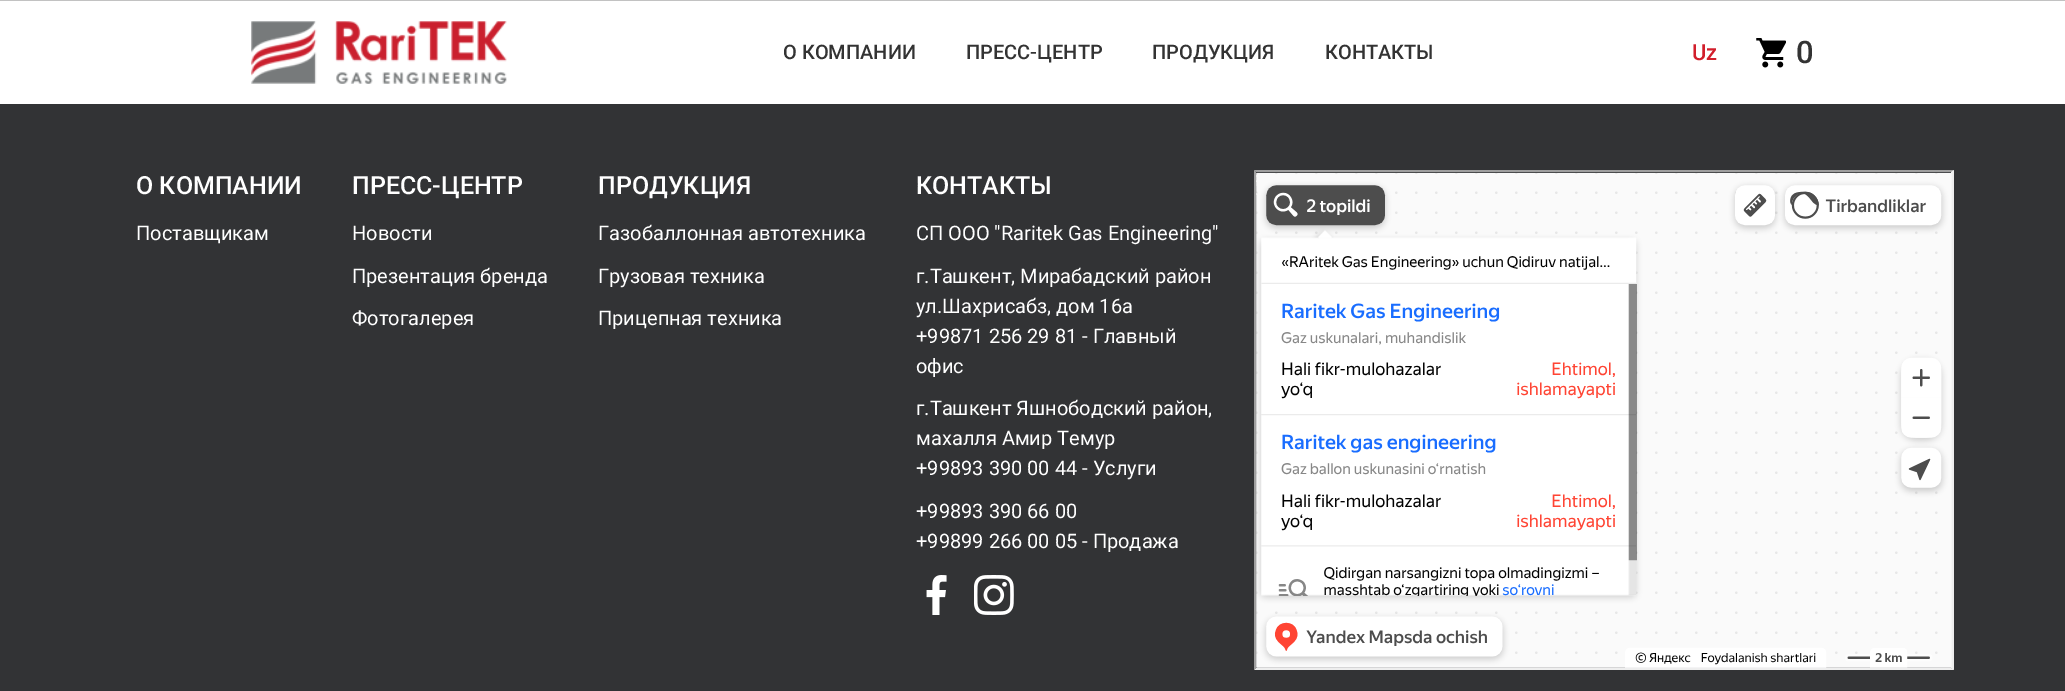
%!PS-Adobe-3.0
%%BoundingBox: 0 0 2065 691
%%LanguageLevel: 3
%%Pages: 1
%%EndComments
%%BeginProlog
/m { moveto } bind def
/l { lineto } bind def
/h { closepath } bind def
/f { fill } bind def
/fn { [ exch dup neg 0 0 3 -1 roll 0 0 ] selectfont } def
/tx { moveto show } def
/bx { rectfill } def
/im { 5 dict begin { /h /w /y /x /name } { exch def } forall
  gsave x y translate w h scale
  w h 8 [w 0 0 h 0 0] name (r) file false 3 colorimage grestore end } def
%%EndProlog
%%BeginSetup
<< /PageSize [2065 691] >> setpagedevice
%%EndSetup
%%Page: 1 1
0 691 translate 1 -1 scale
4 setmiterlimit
0.196 0.2 0.208 setrgbcolor
0 0 2065 691 bx
1 setgray
0 1 2065 103 bx
0.761 setgray
0 0 2065 1 bx
(image0.raw) 251 21 256 63 im
/Roboto-Medium 20 fn
0.2 setgray
(О КОМПАНИИ) 783 59 tx
(ПРЕСС-ЦЕНТР) 966 59 tx
(ПРОДУКЦИЯ) 1152 59 tx
(КОНТАКТЫ) 1325 59 tx
/Roboto-Medium 22 fn
0.824 0.118 0.169 setrgbcolor
(Uz) 1692 60 tx
(image1.raw) 1756 38 30 30 im
/Roboto-Medium 31 fn
0.2 setgray
(0) 1796 63 tx
/Roboto-Medium 25 fn
1 setgray
(О КОМПАНИИ) 136 194 tx
/Roboto-Regular 20 fn
(Поставщикам) 136 240 tx
/Roboto-Medium 25 fn
(ПРЕСС-ЦЕНТР) 352 194 tx
/Roboto-Regular 20 fn
(Новости) 352 240 tx
(Презентация бренда) 352 283 tx
(Фотогалерея) 352 325 tx
/Roboto-Medium 25 fn
(ПРОДУКЦИЯ) 598 194 tx
/Roboto-Regular 20 fn
(Газобаллонная автотехника) 598 240 tx
(Грузовая техника) 598 283 tx
(Прицепная техника) 598 325 tx
/Roboto-Medium 25 fn
(КОНТАКТЫ) 916 194 tx
/Roboto-Regular 20 fn
(СП ООО "Raritek Gas Engineering") 916 240 tx
(г.Ташкент, Мирабадский район) 916 283 tx
(ул.Шахрисабз, дом 16а) 916 313 tx
(+99871 256 29 81 - Главный) 916 343 tx
(офис) 916 373 tx
(г.Ташкент Яшнободский район,) 916 415 tx
(махалля Амир Темур) 916 445 tx
(+99893 390 00 44 - Услуги) 916 475 tx
(+99893 390 66 00) 916 518 tx
(+99899 266 00 05 - Продажа) 916 548 tx
(image2.raw) 926 575 21 40 im
(image3.raw) 974 575 40 40 im
0.624 setgray
1254 170 m 1954 170 l 1951 172 l 1256 172 l h f
0.933 setgray
1954 170 m 1954 670 l 1951 668 l 1951 172 l h f
1954 670 m 1254 670 l 1256 668 l 1951 668 l h f
0.624 setgray
1254 670 m 1254 170 l 1256 172 l 1256 668 l h f
(image4.raw) 1256 172 696 496 im
showpage
%%EOF
